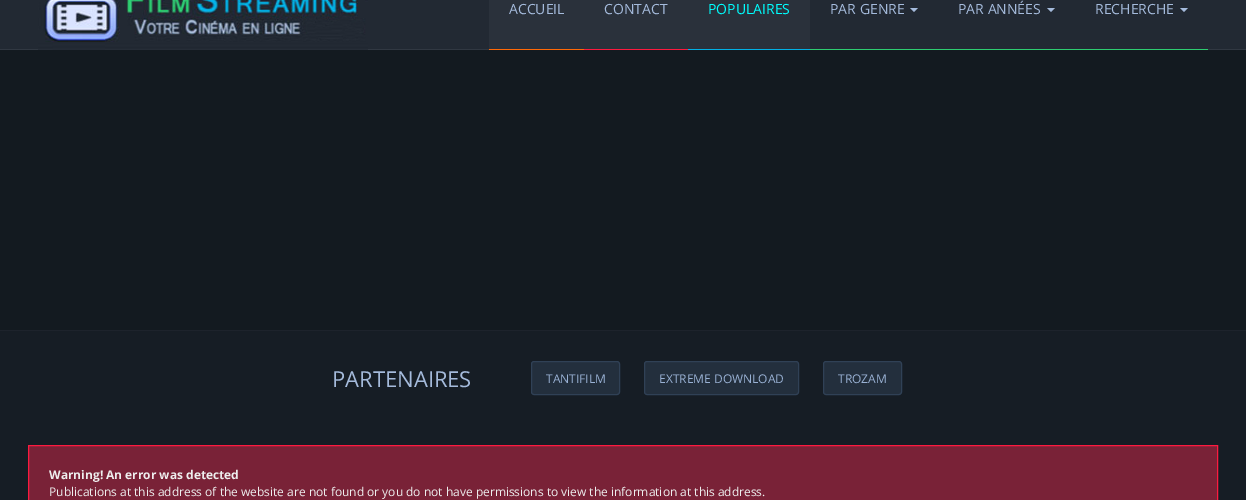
%!PS-Adobe-3.0
%%BoundingBox: 0 0 1246 500
%%LanguageLevel: 3
%%Pages: 1
%%EndComments
%%BeginProlog
/m { moveto } bind def
/l { lineto } bind def
/h { closepath } bind def
/f { fill } bind def
/S { stroke } bind def
/q { gsave } bind def
/Q { grestore } bind def
/fn { [ exch dup neg 0 0 3 -1 roll 0 0 ] selectfont } def
/tx { moveto show } def
/bx { rectfill } def
/rr { 5 dict begin { /r /h /w /y /x } { exch def } forall
  x r add y moveto x w add y 2 copy h add r arct x w add y h add x 1 index r arct
  x y h add x y r arct x y 2 copy exch w add exch r arct closepath end } def
/im { 5 dict begin { /h /w /y /x /name } { exch def } forall
  gsave x y translate w h scale
  w h 8 [w 0 0 h 0 0] name (r) file false 3 colorimage grestore end } def
%%EndProlog
%%BeginSetup
<< /PageSize [1246 500] >> setpagedevice
%%EndSetup
%%Page: 1 1
0 500 translate 1 -1 scale
4 setmiterlimit
0.086 0.114 0.145 setrgbcolor
0 0 1246 500 bx
0.133 0.161 0.2 setrgbcolor
0 0 1246 49 bx
0.192 0.22 0.259 setrgbcolor
0 49 1246 1 bx
(image0.raw) 38 0 330 50 im
0.165 0.192 0.231 setrgbcolor
489 0 321 49 bx
1 0.412 0.027 setrgbcolor
489 49 95 1 bx
/OpenSans-Regular 14 fn
0.647 0.733 0.863 setrgbcolor
(ACCUEIL) 509 14 tx
0.988 0.102 0.247 setrgbcolor
584 49 104 1 bx
0.647 0.733 0.863 setrgbcolor
(CONTACT) 604 14 tx
0.008 0.69 0.894 setrgbcolor
688 49 122 1 bx
0 1 1 setrgbcolor
(POPULAIRES) 708 14 tx
0.18 0.8 0.443 setrgbcolor
810 49 398 1 bx
0.647 0.733 0.863 setrgbcolor
(PAR GENRE) 830 14 tx
910 8 m 918 8 l 914 12 l h f
(PAR ANNÉES) 958 14 tx
1047 8 m 1055 8 l 1051 12 l h f
(RECHERCHE) 1095 14 tx
1180 8 m 1188 8 l 1184 12 l h f
0.075 0.102 0.125 setrgbcolor
0 50 1246 280 bx
0.114 0.137 0.173 setrgbcolor
0 330 1246 1 bx
/OpenSans-Regular 22 fn
0.647 0.733 0.863 setrgbcolor
(PARTENAIRES) 332 387 tx
0.137 0.184 0.239 setrgbcolor
531.5 361.5 88 33 2.5 rr q f Q
0.188 0.255 0.337 setrgbcolor
S
/OpenSans-Regular 12 fn
0.6 0.694 0.831 setrgbcolor
(TANTIFILM) 546 383 tx
0.137 0.184 0.239 setrgbcolor
644.5 361.5 154 33 2.5 rr q f Q
0.188 0.255 0.337 setrgbcolor
S
0.6 0.694 0.831 setrgbcolor
(EXTREME DOWNLOAD) 659 383 tx
0.137 0.184 0.239 setrgbcolor
823.5 361.5 78 33 2.5 rr q f Q
0.188 0.255 0.337 setrgbcolor
S
0.6 0.694 0.831 setrgbcolor
(TROZAM) 838 383 tx
0.475 0.133 0.216 setrgbcolor
28.5 445.5 m 1217.5 445.5 l 1217.5 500.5 l 28.5 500.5 l h q f Q
0.988 0.102 0.247 setrgbcolor
S
/OpenSans-Bold 12 fn
0.933 setgray
(Warning! An error was detected) 49 479 tx
/OpenSans-Regular 12 fn
(Publications at this address of the website are not found or you do not have permissions to view the information at this address.) 49 496 tx
showpage
%%EOF
